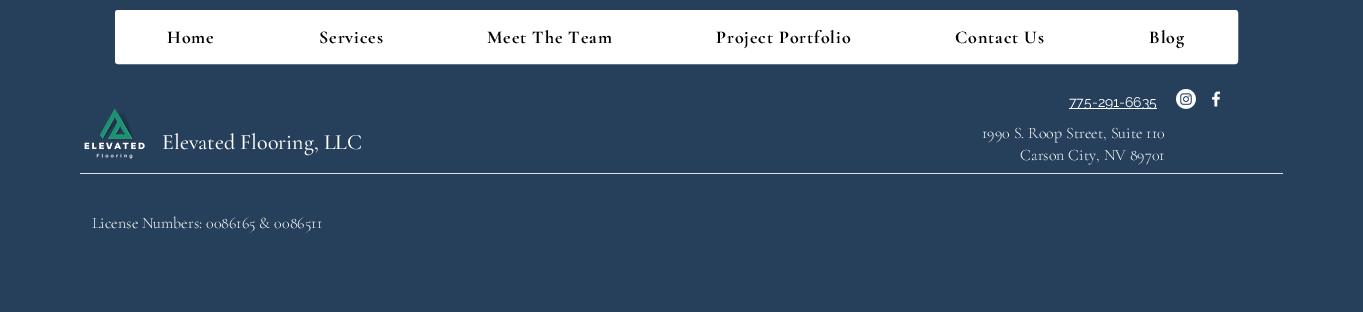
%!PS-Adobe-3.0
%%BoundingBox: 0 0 1363 312
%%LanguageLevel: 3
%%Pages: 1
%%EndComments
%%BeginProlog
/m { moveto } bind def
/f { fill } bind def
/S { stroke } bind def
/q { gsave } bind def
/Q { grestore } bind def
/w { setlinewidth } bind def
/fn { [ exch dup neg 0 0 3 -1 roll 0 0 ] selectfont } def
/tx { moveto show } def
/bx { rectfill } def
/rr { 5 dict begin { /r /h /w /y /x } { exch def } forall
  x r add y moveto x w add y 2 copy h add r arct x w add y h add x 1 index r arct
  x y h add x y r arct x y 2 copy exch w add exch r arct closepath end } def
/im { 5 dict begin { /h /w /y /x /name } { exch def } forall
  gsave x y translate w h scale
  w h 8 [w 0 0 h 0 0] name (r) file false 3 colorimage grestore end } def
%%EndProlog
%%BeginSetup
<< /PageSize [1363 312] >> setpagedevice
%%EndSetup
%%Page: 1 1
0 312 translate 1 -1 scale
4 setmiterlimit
0.149 0.247 0.357 setrgbcolor
0 0 1363 312 bx
1 setgray
117.5 12.5 1118 49 0.5 rr q f Q
5 w
S
/CormorantGaramond-Bold 18 fn
0 setgray
167 43 m 0.9 0 (Home) ashow
319 43 m 0.9 0 (Services) ashow
487 43 m 0.9 0 (Meet The Team) ashow
716 43 m 0.9 0 (Project Portfolio) ashow
955 43 m 0.9 0 (Contact Us) ashow
1149 43 m 0.9 0 (Blog) ashow
(image0.raw) 84 108 61 51 im
/CormorantGaramond-Medium 22 fn
1 setgray
(Elevated Flooring, LLC) 162 149 tx
/CormorantGaramond-Light 16 fn
(License Numbers: 0086165 & 0086511) 92 228 tx
1069 108 88 1 bx
/Raleway-Regular 14 fn
(775-291-6635) 1069 107 tx
(image1.raw) 1176 89 20 20 im
(image2.raw) 1212 91 9 16 im
/CormorantGaramond-Light 16 fn
(1990 S. Roop Street, Suite 110) 982 138 tx
(Carson City, NV 89701) 1020 160 tx
0.871 0.886 0.902 setrgbcolor
80 173 1203 1 bx
showpage
%%EOF
